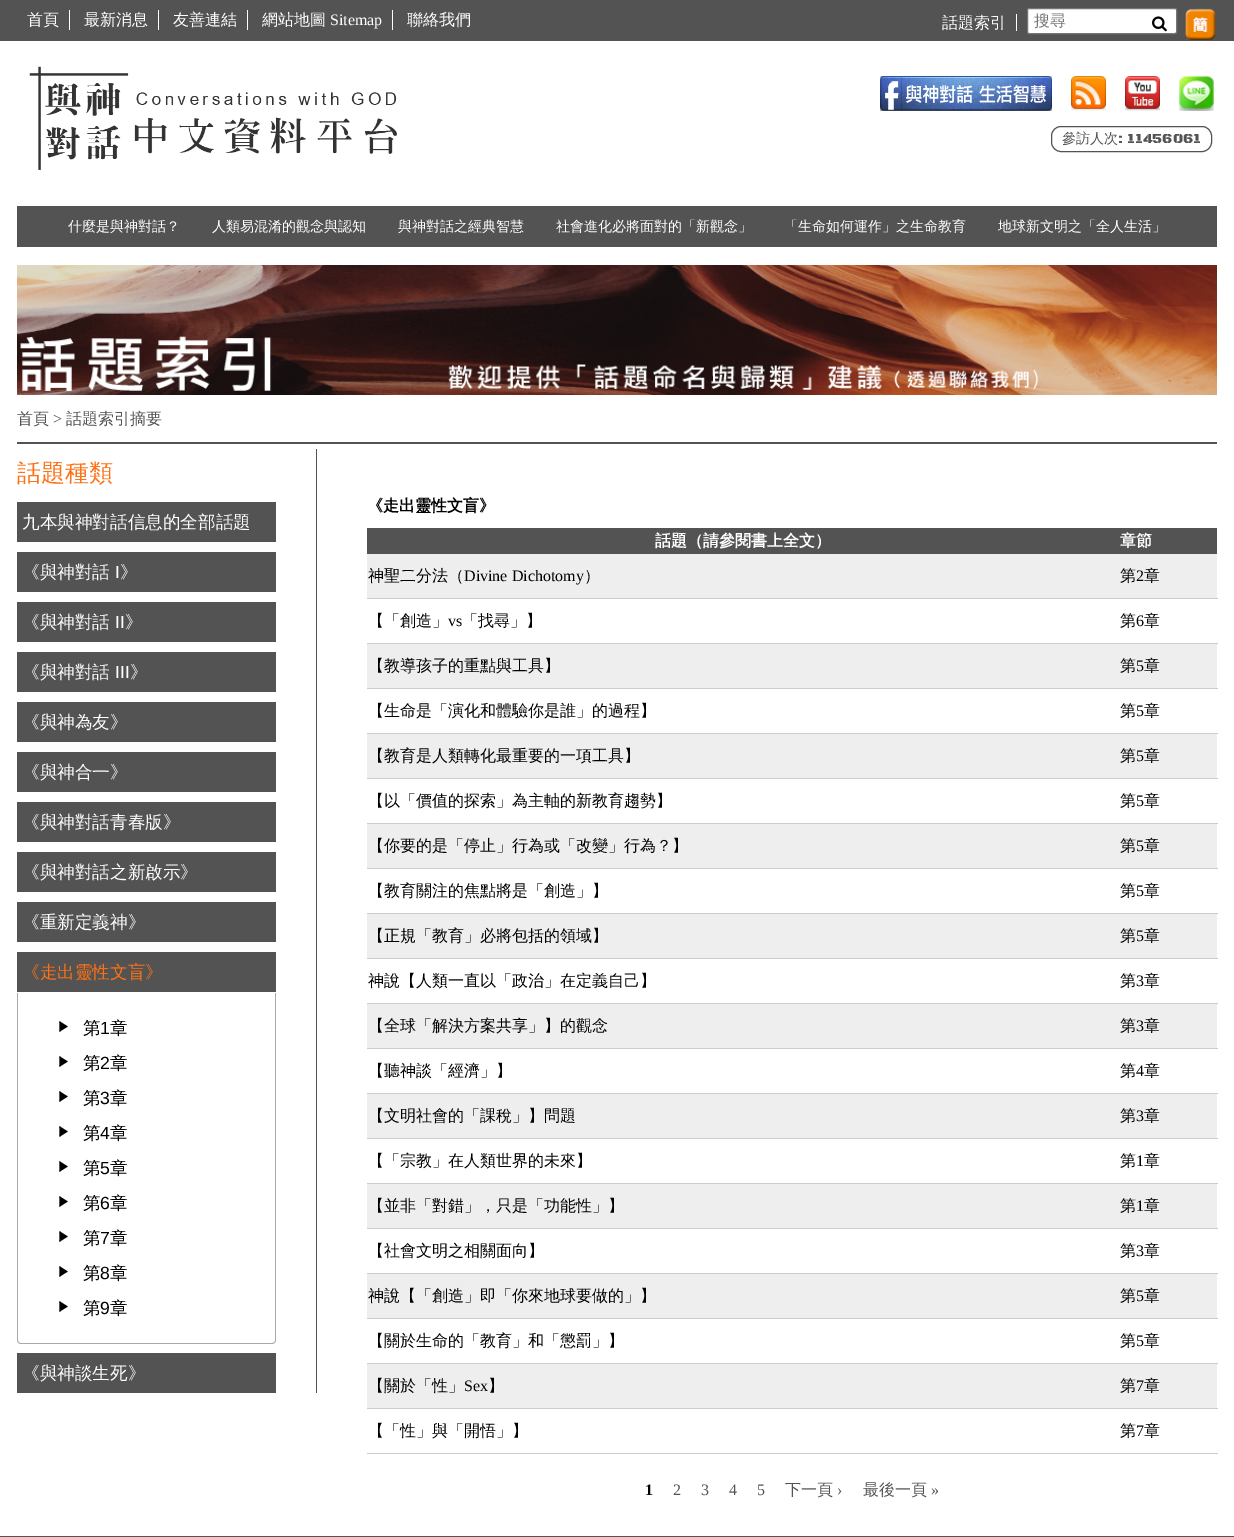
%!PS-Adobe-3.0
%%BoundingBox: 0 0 1234 1537
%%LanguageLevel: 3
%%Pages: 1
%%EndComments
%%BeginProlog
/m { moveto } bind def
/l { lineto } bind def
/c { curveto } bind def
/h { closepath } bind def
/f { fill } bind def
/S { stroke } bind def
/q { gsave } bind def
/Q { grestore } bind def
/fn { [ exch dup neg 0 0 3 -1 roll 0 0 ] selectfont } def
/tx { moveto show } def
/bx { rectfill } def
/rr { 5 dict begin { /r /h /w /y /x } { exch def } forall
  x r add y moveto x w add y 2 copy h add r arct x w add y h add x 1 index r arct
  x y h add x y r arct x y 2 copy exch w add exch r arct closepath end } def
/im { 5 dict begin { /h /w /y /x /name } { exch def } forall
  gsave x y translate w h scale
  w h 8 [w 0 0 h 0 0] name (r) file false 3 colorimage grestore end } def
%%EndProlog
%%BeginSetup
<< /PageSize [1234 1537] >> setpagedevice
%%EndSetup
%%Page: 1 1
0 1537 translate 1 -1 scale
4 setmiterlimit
1 setgray
0 0 1234 1537 bx
0.325 setgray
0 0 1234 41 bx
1 setgray
69 10 1 20 bx
/WenQuanYiZenHei-Medium 16 fn
(首頁) 27 25 tx
158 10 1 20 bx
(最新消息) 84 25 tx
247 10 1 20 bx
(友善連結) 173 25 tx
392 10 1 20 bx
(網站地圖) 262 25 tx
/LiberationSerif-Regular 16 fn
(Sitemap) 330 25 tx
/WenQuanYiZenHei-Medium 16 fn
(聯絡我們) 407 25 tx
(話題索引) 942 28 tx
1016 14 1 17 bx
1027.5 8.5 149 25 1.5 rr q f Q
0.463 setgray
S
0.459 setgray
(搜尋) 1034 26 tx
(image0.raw) 1152 16 15 16 im
(image1.raw) 1185 8 31 32 im
(image2.raw) 29 66 368 104 im
(image3.raw) 880 76 172 35 im
(image4.raw) 1071 76 35 35 im
(image5.raw) 1125 76 35 35 im
(image6.raw) 1179 76 35 35 im
0.325 setgray
1051.5 126.5 160 25 9.5 rr S
/WenQuanYiZenHei-Medium 14 fn
(參訪人次) 1062 143 tx
/BlackOpsOne-Black 14 fn
(: 11456061) 1118 143 tx
17 206 1200 41 bx
/WenQuanYiZenHei-Medium 14 fn
1 setgray
(什麼是與神對話？) 68 231 tx
(人類易混淆的觀念與認知) 212 231 tx
(與神對話之經典智慧) 398 231 tx
(社會進化必將面對的「新觀念」) 556 231 tx
(「生命如何運作」之生命教育) 784 231 tx
(地球新文明之「全人生活」) 998 231 tx
(image7.raw) 17 265 1200 130 im
0.325 setgray
17 442 1200 2 bx
/WenQuanYiZenHei-Medium 16 fn
(首頁) 17 424 tx
/LiberationSerif-Regular 16 fn
(>) 53 424 tx
/WenQuanYiZenHei-Medium 16 fn
(話題索引摘要) 66 424 tx
316 449 1 944 bx
/WenQuanYiZenHei-Medium 24 fn
0.996 0.443 0.082 setrgbcolor
(話題種類) 17 481 tx
0.325 setgray
17 502 259 40 bx
/WenQuanYiZenHei-Medium 17.6 fn
1 setgray
(九本與神對話信息的全部話題) 22 528 tx
0.325 setgray
17 552 259 40 bx
1 setgray
(《與神對話) 22 578 tx
/LiberationSans-Regular 17.6 fn
(I) 115 578 tx
/WenQuanYiZenHei-Medium 17.6 fn
(》) 120 578 tx
0.325 setgray
17 602 259 40 bx
1 setgray
(《與神對話) 22 628 tx
/LiberationSans-Regular 17.6 fn
(II) 115 628 tx
/WenQuanYiZenHei-Medium 17.6 fn
(》) 125 628 tx
0.325 setgray
17 652 259 40 bx
1 setgray
(《與神對話) 22 678 tx
/LiberationSans-Regular 17.6 fn
(III) 115 678 tx
/WenQuanYiZenHei-Medium 17.6 fn
(》) 130 678 tx
0.325 setgray
17 702 259 40 bx
1 setgray
(《與神為友》) 22 728 tx
0.325 setgray
17 752 259 40 bx
1 setgray
(《與神合一》) 22 778 tx
0.325 setgray
17 802 259 40 bx
1 setgray
(《與神對話青春版》) 22 828 tx
0.325 setgray
17 852 259 40 bx
1 setgray
(《與神對話之新啟示》) 22 878 tx
0.325 setgray
17 902 259 40 bx
1 setgray
(《重新定義神》) 22 928 tx
0.325 setgray
17 952 259 40 bx
0.996 0.443 0.082 setrgbcolor
(《走出靈性文盲》) 22 978 tx
0.667 setgray
17 993 m 276 993 l 276 1340 l 276 1342 274 1344 272 1344 c 21 1344 l 19 1344 17 1342 17 1340 c h 18 993 m 275 993 l 275 1340 l 275 1342 274 1343 272 1343 c 21 1343 l 19 1343 18 1342 18 1340 c h eofill
(image8.raw) 59 1021 9 11 im
0 setgray
(第) 83 1034 tx
/LiberationSans-Regular 17.6 fn
(1) 100 1034 tx
/WenQuanYiZenHei-Medium 17.6 fn
(章) 110 1034 tx
(image8.raw) 59 1056 9 11 im
(第) 83 1069 tx
/LiberationSans-Regular 17.6 fn
(2) 100 1069 tx
/WenQuanYiZenHei-Medium 17.6 fn
(章) 110 1069 tx
(image8.raw) 59 1091 9 11 im
(第) 83 1104 tx
/LiberationSans-Regular 17.6 fn
(3) 100 1104 tx
/WenQuanYiZenHei-Medium 17.6 fn
(章) 110 1104 tx
(image8.raw) 59 1126 9 11 im
(第) 83 1139 tx
/LiberationSans-Regular 17.6 fn
(4) 100 1139 tx
/WenQuanYiZenHei-Medium 17.6 fn
(章) 110 1139 tx
(image8.raw) 59 1161 9 11 im
(第) 83 1174 tx
/LiberationSans-Regular 17.6 fn
(5) 100 1174 tx
/WenQuanYiZenHei-Medium 17.6 fn
(章) 110 1174 tx
(image8.raw) 59 1196 9 11 im
(第) 83 1209 tx
/LiberationSans-Regular 17.6 fn
(6) 100 1209 tx
/WenQuanYiZenHei-Medium 17.6 fn
(章) 110 1209 tx
(image8.raw) 59 1231 9 11 im
(第) 83 1244 tx
/LiberationSans-Regular 17.6 fn
(7) 100 1244 tx
/WenQuanYiZenHei-Medium 17.6 fn
(章) 110 1244 tx
(image8.raw) 59 1266 9 11 im
(第) 83 1279 tx
/LiberationSans-Regular 17.6 fn
(8) 100 1279 tx
/WenQuanYiZenHei-Medium 17.6 fn
(章) 110 1279 tx
(image8.raw) 59 1301 9 11 im
(第) 83 1314 tx
/LiberationSans-Regular 17.6 fn
(9) 100 1314 tx
/WenQuanYiZenHei-Medium 17.6 fn
(章) 110 1314 tx
0.325 setgray
17 1353 259 40 bx
1 setgray
(《與神談生死》) 22 1379 tx
/WenQuanYiZenHei-Bold 16 fn
0 setgray
(《走出靈性文盲》) 367 511 tx
0.325 setgray
367 528 850 26 bx
1 setgray
(話題（請參閱書上全文）) 655 546 tx
(章節) 1120 546 tx
0.933 setgray
367 554 850 44 bx
0.8 setgray
367 598 851 1 bx
/WenQuanYiZenHei-Medium 16 fn
0 setgray
(神聖二分法（) 368 581 tx
/LiberationSerif-Regular 16 fn
(Divine Dichotomy) 464 581 tx
/WenQuanYiZenHei-Medium 16 fn
(）) 584 581 tx
(第) 1120 581 tx
/LiberationSerif-Regular 16 fn
(2) 1136 581 tx
/WenQuanYiZenHei-Medium 16 fn
(章) 1144 581 tx
0.8 setgray
367 643 851 1 bx
0 setgray
(【「創造」) 368 626 tx
/LiberationSerif-Regular 16 fn
(vs) 448 626 tx
/WenQuanYiZenHei-Medium 16 fn
(「找尋」】) 462 626 tx
(第) 1120 626 tx
/LiberationSerif-Regular 16 fn
(6) 1136 626 tx
/WenQuanYiZenHei-Medium 16 fn
(章) 1144 626 tx
0.933 setgray
367 644 850 44 bx
0.8 setgray
367 688 851 1 bx
0 setgray
(【教導孩子的重點與工具】) 368 671 tx
(第) 1120 671 tx
/LiberationSerif-Regular 16 fn
(5) 1136 671 tx
/WenQuanYiZenHei-Medium 16 fn
(章) 1144 671 tx
0.8 setgray
367 733 851 1 bx
0 setgray
(【生命是「演化和體驗你是誰」的過程】) 368 716 tx
(第) 1120 716 tx
/LiberationSerif-Regular 16 fn
(5) 1136 716 tx
/WenQuanYiZenHei-Medium 16 fn
(章) 1144 716 tx
0.933 setgray
367 734 850 44 bx
0.8 setgray
367 778 851 1 bx
0 setgray
(【教育是人類轉化最重要的一項工具】) 368 761 tx
(第) 1120 761 tx
/LiberationSerif-Regular 16 fn
(5) 1136 761 tx
/WenQuanYiZenHei-Medium 16 fn
(章) 1144 761 tx
0.8 setgray
367 823 851 1 bx
0 setgray
(【以「價值的探索」為主軸的新教育趨勢】) 368 806 tx
(第) 1120 806 tx
/LiberationSerif-Regular 16 fn
(5) 1136 806 tx
/WenQuanYiZenHei-Medium 16 fn
(章) 1144 806 tx
0.933 setgray
367 824 850 44 bx
0.8 setgray
367 868 851 1 bx
0 setgray
(【你要的是「停止」行為或「改變」行為？】) 368 851 tx
(第) 1120 851 tx
/LiberationSerif-Regular 16 fn
(5) 1136 851 tx
/WenQuanYiZenHei-Medium 16 fn
(章) 1144 851 tx
0.8 setgray
367 913 851 1 bx
0 setgray
(【教育關注的焦點將是「創造」】) 368 896 tx
(第) 1120 896 tx
/LiberationSerif-Regular 16 fn
(5) 1136 896 tx
/WenQuanYiZenHei-Medium 16 fn
(章) 1144 896 tx
0.933 setgray
367 914 850 44 bx
0.8 setgray
367 958 851 1 bx
0 setgray
(【正規「教育」必將包括的領域】) 368 941 tx
(第) 1120 941 tx
/LiberationSerif-Regular 16 fn
(5) 1136 941 tx
/WenQuanYiZenHei-Medium 16 fn
(章) 1144 941 tx
0.8 setgray
367 1003 851 1 bx
0 setgray
(神說【人類一直以「政治」在定義自己】) 368 986 tx
(第) 1120 986 tx
/LiberationSerif-Regular 16 fn
(3) 1136 986 tx
/WenQuanYiZenHei-Medium 16 fn
(章) 1144 986 tx
0.933 setgray
367 1004 850 44 bx
0.8 setgray
367 1048 851 1 bx
0 setgray
(【全球「解決方案共享」】的觀念) 368 1031 tx
(第) 1120 1031 tx
/LiberationSerif-Regular 16 fn
(3) 1136 1031 tx
/WenQuanYiZenHei-Medium 16 fn
(章) 1144 1031 tx
0.8 setgray
367 1093 851 1 bx
0 setgray
(【聽神談「經濟」】) 368 1076 tx
(第) 1120 1076 tx
/LiberationSerif-Regular 16 fn
(4) 1136 1076 tx
/WenQuanYiZenHei-Medium 16 fn
(章) 1144 1076 tx
0.933 setgray
367 1094 850 44 bx
0.8 setgray
367 1138 851 1 bx
0 setgray
(【文明社會的「課稅」】問題) 368 1121 tx
(第) 1120 1121 tx
/LiberationSerif-Regular 16 fn
(3) 1136 1121 tx
/WenQuanYiZenHei-Medium 16 fn
(章) 1144 1121 tx
0.8 setgray
367 1183 851 1 bx
0 setgray
(【「宗教」在人類世界的未來】) 368 1166 tx
(第) 1120 1166 tx
/LiberationSerif-Regular 16 fn
(1) 1136 1166 tx
/WenQuanYiZenHei-Medium 16 fn
(章) 1144 1166 tx
0.933 setgray
367 1184 850 44 bx
0.8 setgray
367 1228 851 1 bx
0 setgray
(【並非「對錯」，只是「功能性」】) 368 1211 tx
(第) 1120 1211 tx
/LiberationSerif-Regular 16 fn
(1) 1136 1211 tx
/WenQuanYiZenHei-Medium 16 fn
(章) 1144 1211 tx
0.8 setgray
367 1273 851 1 bx
0 setgray
(【社會文明之相關面向】) 368 1256 tx
(第) 1120 1256 tx
/LiberationSerif-Regular 16 fn
(3) 1136 1256 tx
/WenQuanYiZenHei-Medium 16 fn
(章) 1144 1256 tx
0.933 setgray
367 1274 850 44 bx
0.8 setgray
367 1318 851 1 bx
0 setgray
(神說【「創造」即「你來地球要做的」】) 368 1301 tx
(第) 1120 1301 tx
/LiberationSerif-Regular 16 fn
(5) 1136 1301 tx
/WenQuanYiZenHei-Medium 16 fn
(章) 1144 1301 tx
0.8 setgray
367 1363 851 1 bx
0 setgray
(【關於生命的「教育」和「懲罰」】) 368 1346 tx
(第) 1120 1346 tx
/LiberationSerif-Regular 16 fn
(5) 1136 1346 tx
/WenQuanYiZenHei-Medium 16 fn
(章) 1144 1346 tx
0.933 setgray
367 1364 850 44 bx
0.8 setgray
367 1408 851 1 bx
0 setgray
(【關於「性」) 368 1391 tx
/LiberationSerif-Regular 16 fn
(Sex) 464 1391 tx
/WenQuanYiZenHei-Medium 16 fn
(】) 488 1391 tx
(第) 1120 1391 tx
/LiberationSerif-Regular 16 fn
(7) 1136 1391 tx
/WenQuanYiZenHei-Medium 16 fn
(章) 1144 1391 tx
0.8 setgray
367 1453 851 1 bx
0 setgray
(【「性」與「開悟」】) 368 1436 tx
(第) 1120 1436 tx
/LiberationSerif-Regular 16 fn
(7) 1136 1436 tx
/WenQuanYiZenHei-Medium 16 fn
(章) 1144 1436 tx
/LiberationSerif-Bold 16 fn
(1) 645 1495 tx
/LiberationSerif-Regular 16 fn
0.325 setgray
(2) 673 1495 tx
(3) 701 1495 tx
(4) 729 1495 tx
(5) 757 1495 tx
/WenQuanYiZenHei-Medium 16 fn
(下一頁) 785 1495 tx
/LiberationSerif-Regular 16 fn
(›) 837 1495 tx
/WenQuanYiZenHei-Medium 16 fn
(最後一頁) 863 1495 tx
/LiberationSerif-Regular 16 fn
(») 931 1495 tx
0 1536 1234 1 bx
showpage
%%EOF
